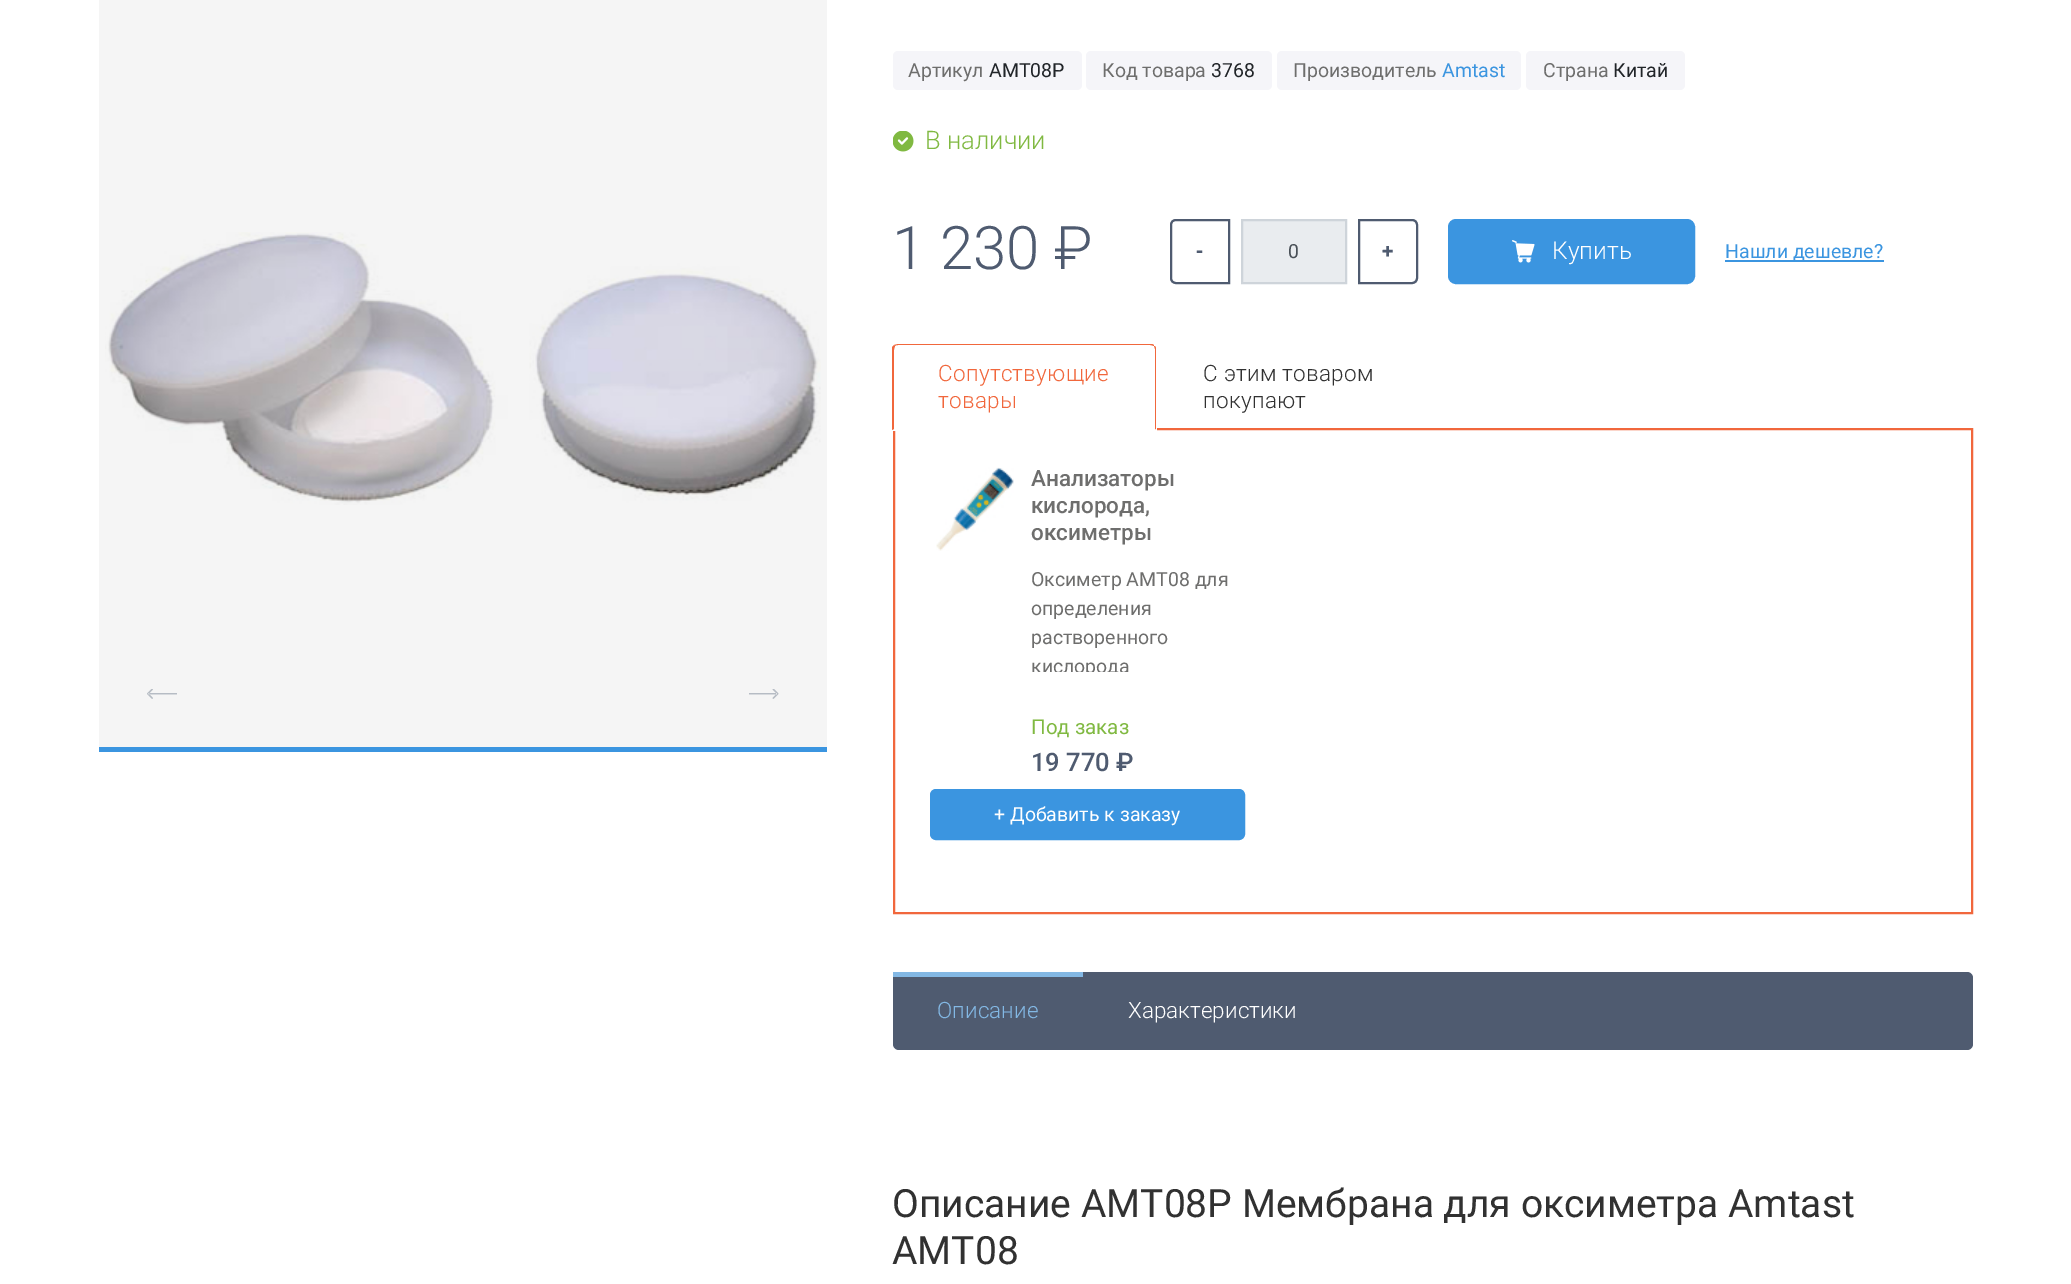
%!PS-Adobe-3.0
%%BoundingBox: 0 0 2071 1284
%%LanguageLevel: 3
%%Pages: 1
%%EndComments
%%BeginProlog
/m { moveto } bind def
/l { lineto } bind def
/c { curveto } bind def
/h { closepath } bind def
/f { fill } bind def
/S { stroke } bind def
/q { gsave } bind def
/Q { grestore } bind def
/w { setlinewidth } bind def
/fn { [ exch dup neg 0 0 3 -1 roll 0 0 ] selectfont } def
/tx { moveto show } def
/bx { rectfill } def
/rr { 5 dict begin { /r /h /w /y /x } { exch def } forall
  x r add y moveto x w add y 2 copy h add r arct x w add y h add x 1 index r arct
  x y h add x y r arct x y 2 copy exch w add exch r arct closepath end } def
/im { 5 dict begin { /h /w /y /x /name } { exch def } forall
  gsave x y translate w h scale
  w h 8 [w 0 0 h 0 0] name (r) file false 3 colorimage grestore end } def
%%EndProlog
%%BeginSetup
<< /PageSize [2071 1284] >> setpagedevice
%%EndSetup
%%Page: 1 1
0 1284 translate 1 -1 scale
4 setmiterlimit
1 setgray
0 0 2071 1284 bx
0.961 setgray
99 0 728 747 bx
(image0.raw) 105 232 716 273 im
(image1.raw) 147 689 30 10 im
(image2.raw) 749 689 30 10 im
0.231 0.584 0.878 setrgbcolor
99 747 728 5 bx
0.961 0.961 0.976 setrgbcolor
893 51 189 39 5 rr f
/Roboto-Regular 19.5 fn
0.431 0.431 0.427 setrgbcolor
(Артикул) 908 77 tx
0.129 0.145 0.161 setrgbcolor
(AMT08P) 989 77 tx
0.961 0.961 0.976 setrgbcolor
1086 51 186 39 5 rr f
0.431 0.431 0.427 setrgbcolor
(Код товара) 1102 77 tx
0.129 0.145 0.161 setrgbcolor
(3768) 1211 77 tx
0.961 0.961 0.976 setrgbcolor
1277 51 244 39 5 rr f
0.431 0.431 0.427 setrgbcolor
(Производитель) 1293 77 tx
0.231 0.584 0.878 setrgbcolor
(Amtast) 1442 77 tx
0.961 0.961 0.976 setrgbcolor
1526 51 159 39 5 rr f
0.431 0.431 0.427 setrgbcolor
(Страна) 1543 77 tx
0.129 0.145 0.161 setrgbcolor
(Китай) 1613 77 tx
(image3.raw) 893 131 21 21 im
/Roboto-Light 25.5 fn
0.502 0.725 0.255 setrgbcolor
(В наличии) 925 149 tx
/Roboto-Light 60 fn
0.31 0.357 0.439 setrgbcolor
(1 230 ₽) 892 269 tx
2 w
1176 220 m 1229 220 l 1229 283 l 1176 283 l 1173 283 1171 281 1171 278 c 1171 225 l 1171 222 1173 220 1176 220 c h S
/Roboto-Bold 19.5 fn
(-) 1196 258 tx
0.914 0.925 0.937 setrgbcolor
1242 220 m 1346 220 l 1346 283 l 1242 283 l h q f Q
0.808 0.831 0.855 setrgbcolor
S
/Roboto-Regular 19.5 fn
0.286 0.314 0.341 setrgbcolor
(0) 1288 258 tx
0.31 0.357 0.439 setrgbcolor
1359 220 m 1412 220 l 1415 220 1417 222 1417 225 c 1417 278 l 1417 281 1415 283 1412 283 c 1359 283 l h S
/Roboto-Bold 19.5 fn
(+) 1382 258 tx
0.231 0.584 0.878 setrgbcolor
1449 220 245 63 7 rr q f Q
S
(image4.raw) 1512 240 23 23 im
/Roboto-Light 24.5 fn
1 setgray
(Купить) 1552 259 tx
0.231 0.584 0.878 setrgbcolor
1725 260 159 2 bx
/Roboto-Regular 19.5 fn
(Нашли дешевле?) 1725 258 tx
0.945 0.404 0.235 setrgbcolor
894 429 1078 484 rectstroke
1 setgray
899 344 m 1151 344 l 1154.5 344 1157 346.5 1157 350 c 1157 431 l 893 431 l 893 350 l 893 346.5 895.5 344 899 344 c h f
0.945 0.404 0.235 setrgbcolor
898 344 m 894 345 l 895 346 l 896 345 897 345 898 345 c 1150 345 l 1152 345 1153 346 1154 346 c 1154 344 1152 344 1150 344 c h f
1156 430 m 1156 350 l 1156 348 1156 346 1154 346 c 1155 349 l 1155 429 l h f
1 setgray
1156 430 m 1155 429 l 894 429 l 893 430 l h f
0.945 0.404 0.235 setrgbcolor
892 347 m 894 345 l 895 346 l 895 347 894 348 894 350 c 894 429 l 892 430 l h f
/Roboto-Light 22.5 fn
938 381 m 0.25 0 (Сопутствующие) ashow
938 408 m 0.25 0 (товары) ashow
0.192 setgray
1203 381 m 0.25 0 (С этим товаром) ashow
1203 408 m 0.25 0 (покупают) ashow
(image5.raw) 936 467 78 84 im
/Roboto-Medium 22.5 fn
0.431 0.431 0.427 setrgbcolor
(Анализаторы) 1031 486 tx
(кислорода,) 1031 513 tx
(оксиметры) 1031 540 tx
/Roboto-Regular 19.5 fn
(Оксиметр AMT08 для) 1031 586 tx
(определения) 1031 615 tx
(растворенного) 1031 644 tx
q
1032 564 213 108 rectclip
(кислорода) 1031 673 tx
Q
/Roboto-Regular 20.5 fn
0.502 0.725 0.255 setrgbcolor
(Под заказ) 1031 734 tx
/Roboto-Medium 25.5 fn
0.31 0.357 0.439 setrgbcolor
(19 770 ₽) 1031 771 tx
0.231 0.584 0.878 setrgbcolor
931 790 313 49 5 rr q f Q
S
/Roboto-Regular 19.5 fn
1 setgray
(+ Добавить к заказу) 994 821 tx
0.31 0.357 0.439 setrgbcolor
893 972 1080 78 6 rr f
0.514 0.722 0.894 setrgbcolor
893 972 190 5 bx
/Roboto-Light 22.5 fn
(Описание) 937 1018 tx
1 setgray
(Характеристики) 1128 1018 tx
/Roboto-Regular 39 fn
0.192 setgray
(Описание AMT08P Мембрана для оксиметра Amtast) 892 1217 tx
(AMT08) 892 1264 tx
showpage
%%EOF
